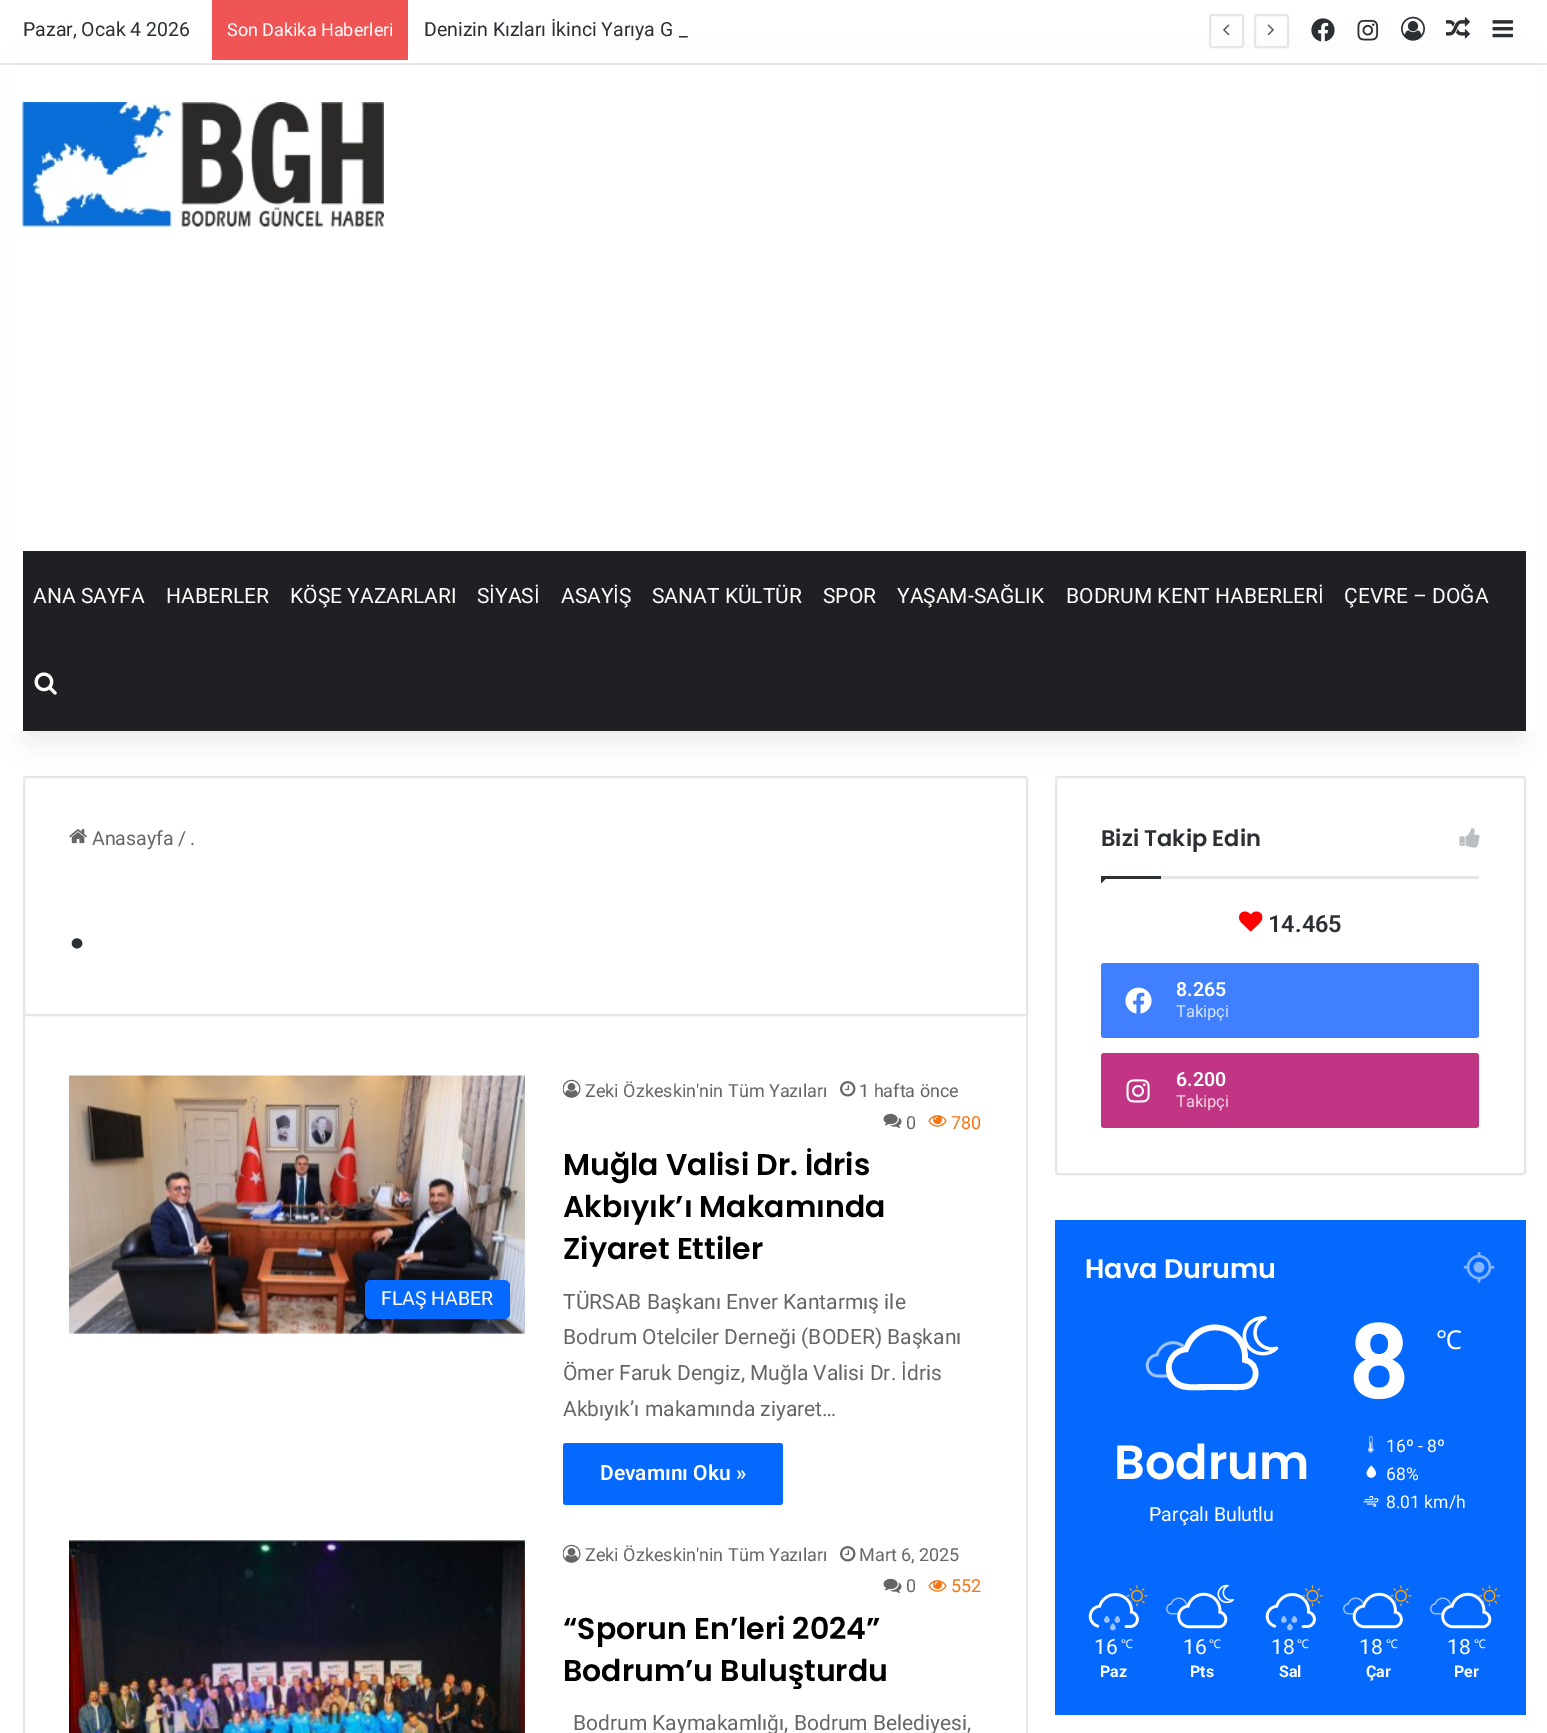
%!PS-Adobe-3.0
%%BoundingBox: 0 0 1547 1733
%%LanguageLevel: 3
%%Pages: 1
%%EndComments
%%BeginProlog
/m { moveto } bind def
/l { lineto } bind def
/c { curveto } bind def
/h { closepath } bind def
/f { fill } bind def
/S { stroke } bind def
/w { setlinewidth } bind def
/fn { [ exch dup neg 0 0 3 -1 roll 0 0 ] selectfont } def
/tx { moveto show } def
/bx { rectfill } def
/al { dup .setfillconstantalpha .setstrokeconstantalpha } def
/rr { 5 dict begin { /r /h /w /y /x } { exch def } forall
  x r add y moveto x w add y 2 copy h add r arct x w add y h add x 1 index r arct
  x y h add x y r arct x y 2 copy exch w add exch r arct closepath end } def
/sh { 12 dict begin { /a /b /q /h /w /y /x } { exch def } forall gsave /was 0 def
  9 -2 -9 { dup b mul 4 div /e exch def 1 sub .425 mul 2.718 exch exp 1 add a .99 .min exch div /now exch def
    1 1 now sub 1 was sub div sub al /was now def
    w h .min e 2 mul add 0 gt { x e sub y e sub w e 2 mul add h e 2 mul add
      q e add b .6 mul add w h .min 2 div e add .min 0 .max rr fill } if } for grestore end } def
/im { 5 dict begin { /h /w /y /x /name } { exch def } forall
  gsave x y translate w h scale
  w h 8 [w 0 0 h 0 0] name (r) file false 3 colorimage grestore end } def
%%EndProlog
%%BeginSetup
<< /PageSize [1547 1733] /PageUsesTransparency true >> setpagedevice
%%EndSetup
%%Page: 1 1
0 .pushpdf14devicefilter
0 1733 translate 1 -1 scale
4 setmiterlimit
1 setgray
0 0 1547 1733 bx
0.902 setgray
2 w
26 777 m 1025 777 l 1026 777 1027 778 1027 779 c 1027 1015 l 24 1015 l 24 779 l 24 778 25 777 26 777 c h S
1056 777 469 397 2 rr S
0 setgray
30 68 1488 670 0 15 0.1 sh
1 setgray
11 49 1526 682 bx
0.902 setgray
0 63 1547 2 bx
/Roboto-Regular 19.5 fn
0.173 0.184 0.204 setrgbcolor
(Pazar, Ocak 4 2026) 23 36 tx
0.941 0.333 0.333 setrgbcolor
212 0 196 60 bx
/Roboto-Regular 18 fn
1 setgray
(Son Dakika Haberleri) 227 36 tx
/Roboto-Regular 19.5 fn
0.173 0.184 0.204 setrgbcolor
(Denizin Kızları İkinci Yarıya G) 424 36 tx
(_) 679 36 tx
0.902 setgray
1210 15 33 32 2 rr S
(image0.raw) 1223 24 7 12 im
1255 15 33 32 2 rr S
(image1.raw) 1267 24 7 12 im
(image2.raw) 1311 18 24 24 im
(image3.raw) 1357 19 22 22 im
(image4.raw) 1401 16 24 25 im
(image5.raw) 1446 17 24 22 im
(image6.raw) 1492 20 22 18 im
(image7.raw) 22 102 362 125 im
0.122 0.125 0.141 setrgbcolor
23 551 1503 180 bx
/Roboto-Regular 21 fn
1 setgray
(ANA SAYFA) 33 603 tx
(HABERLER) 166 603 tx
(KÖŞE YAZARLARI) 290 603 tx
(SİYASİ) 477 603 tx
(ASAYİŞ) 561 603 tx
(SANAT KÜLTÜR) 652 603 tx
(SPOR) 823 603 tx
(YAŞAM-SAĞLIK) 897 603 tx
(BODRUM KENT HABERLERİ) 1066 603 tx
(ÇEVRE – DOĞA) 1344 603 tx
(image8.raw) 34 672 23 23 im
(image9.raw) 69 829 18 15 im
/Roboto-Regular 19.5 fn
0.4 setgray
(Anasayfa) 92 845 tx
(/) 178 845 tx
(.) 190 845 tx
/Poppins-SemiBold 62 fn
0.173 0.184 0.204 setrgbcolor
(.) 69 948 tx
0.902 setgray
1026 1016 2 717 bx
23 1016 2 717 bx
(image10.raw) 69 1075 456 259 im
0.024 0.412 1 setrgbcolor
365 1280 145 39 6 rr f
/Roboto-Regular 19.5 fn
1 setgray
(FLAŞ HABER) 381 1305 tx
(image11.raw) 563 1079 18 19 im
/Roboto-Regular 18 fn
0.4 setgray
(Zeki Özkeskin'nin Tüm Yazıları) 585 1097 tx
(image12.raw) 840 1081 16 16 im
(1 hafta önce) 859 1097 tx
(image13.raw) 883 1113 19 15 im
(0) 906 1129 tx
(image14.raw) 928 1115 19 12 im
0.957 0.459 0.071 setrgbcolor
(780) 951 1129 tx
/Poppins-SemiBold 30 fn
0 setgray
(Muğla Valisi Dr. İdris) 563 1175 tx
(Akbıyık’ı Makamında) 563 1217 tx
(Ziyaret Ettiler) 563 1259 tx
/Roboto-Regular 21 fn
0.4 setgray
(TÜRSAB Başkanı Enver Kantarmış ile) 563 1309 tx
(Bodrum Otelciler Derneği \(BODER\) Başkanı) 563 1344 tx
(Ömer Faruk Dengiz, Muğla Valisi Dr. İdris) 563 1380 tx
(Akbıyık’ı makamında ziyaret…) 563 1416 tx
0.024 0.412 1 setrgbcolor
563 1443 220 62 3 rr f
/Roboto-SemiBold 21 fn
1 setgray
(Devamını Oku ») 600 1480 tx
(image15.raw) 69 1540 456 193 im
(image11.raw) 563 1544 18 19 im
/Roboto-Regular 18 fn
0.4 setgray
(Zeki Özkeskin'nin Tüm Yazıları) 585 1561 tx
(image12.raw) 840 1546 16 16 im
(Mart 6, 2025) 859 1561 tx
(image13.raw) 883 1578 19 15 im
(0) 906 1592 tx
(image14.raw) 928 1580 19 12 im
0.957 0.459 0.071 setrgbcolor
(552) 951 1592 tx
/Poppins-SemiBold 30 fn
0 setgray
(“Sporun En’leri 2024”) 563 1639 tx
(Bodrum’u Buluşturdu) 563 1681 tx
/Roboto-Regular 21 fn
0.4 setgray
(Bodrum Kaymakamlığı, Bodrum Belediyesi,) 573 1730 tx
0.902 setgray
1161 876 318 3 bx
/Poppins-SemiBold 22.5 fn
0.173 0.184 0.204 setrgbcolor
(Bizi Takip Edin) 1101 846 tx
(image16.raw) 1459 828 21 20 im
1101 876 m 1108.5 876 l 1101 883.5 l h f
1101 876 60 3 bx
(image17.raw) 1239 911 24 21 im
/Roboto-SemiBold 23.5 fn
(14.465) 1268 932 tx
0.251 0.502 1 setrgbcolor
1101 963 378 75 3 rr f
(image18.raw) 1125 987 27 27 im
/Roboto-SemiBold 19.5 fn
1 setgray
(8.265) 1176 996 tx
/Roboto-Regular 16.5 fn
0.851 0.902 1 setrgbcolor
(Takipçi) 1176 1017 tx
0.757 0.208 0.518 setrgbcolor
1101 1053 378 75 3 rr f
(image19.raw) 1126 1079 24 24 im
/Roboto-SemiBold 19.5 fn
1 setgray
(6.200) 1176 1086 tx
/Roboto-Regular 16.5 fn
0.953 0.843 0.902 setrgbcolor
(Takipçi) 1176 1107 tx
0.024 0.412 1 setrgbcolor
1055 1220 471 495 bx
/Poppins-SemiBold 27 fn
1 setgray
(Hava Durumu) 1085 1278 tx
(image20.raw) 1463 1252 32 31 im
(image21.raw) 1242 1316 37 40 im
(image22.raw) 1145 1341 40 37 im
(image23.raw) 1167 1339 80 39 im
1248 1358 m 1252 1360 1256 1363 1257 1367 c 1259 1371 1259 1376 1257 1380 c 1253 1391 1242 1390 1232 1390 c 1206 1390 l 1192 1390 1176 1393 1168 1378 c 1162 1365 1170 1349 1184 1347 c 1196 1312 1248 1320 1248 1358 c h 1242 1384 m 1253 1384 1257 1370 1248 1364 c 1242 1362 l 1246 1327 1199 1317 1188 1352 c 1181 1352 1174 1356 1172 1364 c 1171 1368 1172 1372 1174 1376 c 1180 1387 1195 1384 1206 1384 c h f
/Poppins-SemiBold 48 fn
(Bodrum) 1114 1479 tx
/Roboto-Regular 19.5 fn
(Parçalı Bulutlu) 1149 1521 tx
/Roboto-Bold 105 fn
(8) 1349 1398 tx
/NotoSans-Regular 26 fn
(℃) 1436 1349 tx
(image24.raw) 1368 1436 6 17 im
/Roboto-Regular 17.5 fn
(16º - 8º) 1386 1452 tx
(image25.raw) 1366 1465 10 13 im
(68%) 1386 1480 tx
(image26.raw) 1363 1495 16 12 im
(8.01 km/h) 1386 1508 tx
(image27.raw) 1126 1585 22 22 im
(image29.raw) 1126 1596 5 8 im
(image28.raw) 1088 1593 51 35 im
(image30.raw) 1104 1615 6 8 im
(image31.raw) 1114 1615 7 8 im
(image32.raw) 1110 1623 6 8 im
/Roboto-Regular 21 fn
(16) 1094 1654 tx
/NotoSans-Regular 12 fn
(℃) 1121 1648 tx
/Roboto-Bold 16 fn
(Paz) 1100 1677 tx
(image33.raw) 1217 1584 18 20 im
(image35.raw) 1166 1597 22 18 im
(image36.raw) 1177 1604 14 11 im
(image34.raw) 1177 1592 51 37 im
/Roboto-Regular 21 fn
(16) 1183 1654 tx
/NotoSans-Regular 12 fn
(℃) 1209 1648 tx
/Roboto-Bold 16 fn
(Pts) 1190 1677 tx
(image37.raw) 1302 1585 21 22 im
(image39.raw) 1302 1595 6 9 im
(image38.raw) 1265 1593 51 35 im
(image30.raw) 1281 1615 6 8 im
(image31.raw) 1291 1615 7 8 im
(image32.raw) 1287 1623 6 8 im
/Roboto-Regular 21 fn
(18) 1271 1654 tx
/NotoSans-Regular 12 fn
(℃) 1297 1648 tx
/Roboto-Bold 16 fn
(Sal) 1279 1677 tx
(image27.raw) 1390 1585 22 22 im
(image42.raw) 1343 1597 21 18 im
(image41.raw) 1352 1596 43 19 im
(image40.raw) 1352 1592 51 37 im
/Roboto-Regular 21 fn
(18) 1359 1654 tx
/NotoSans-Regular 12 fn
(℃) 1386 1648 tx
/Roboto-Bold 16 fn
(Çar) 1366 1677 tx
(image37.raw) 1479 1585 21 22 im
(image35.raw) 1430 1597 22 18 im
(image44.raw) 1441 1601 43 14 im
(image43.raw) 1441 1592 51 37 im
/Roboto-Regular 21 fn
(18) 1447 1654 tx
/NotoSans-Regular 12 fn
(℃) 1474 1648 tx
/Roboto-Bold 16 fn
(Per) 1454 1677 tx
.poppdf14devicefilter showpage
%%EOF
